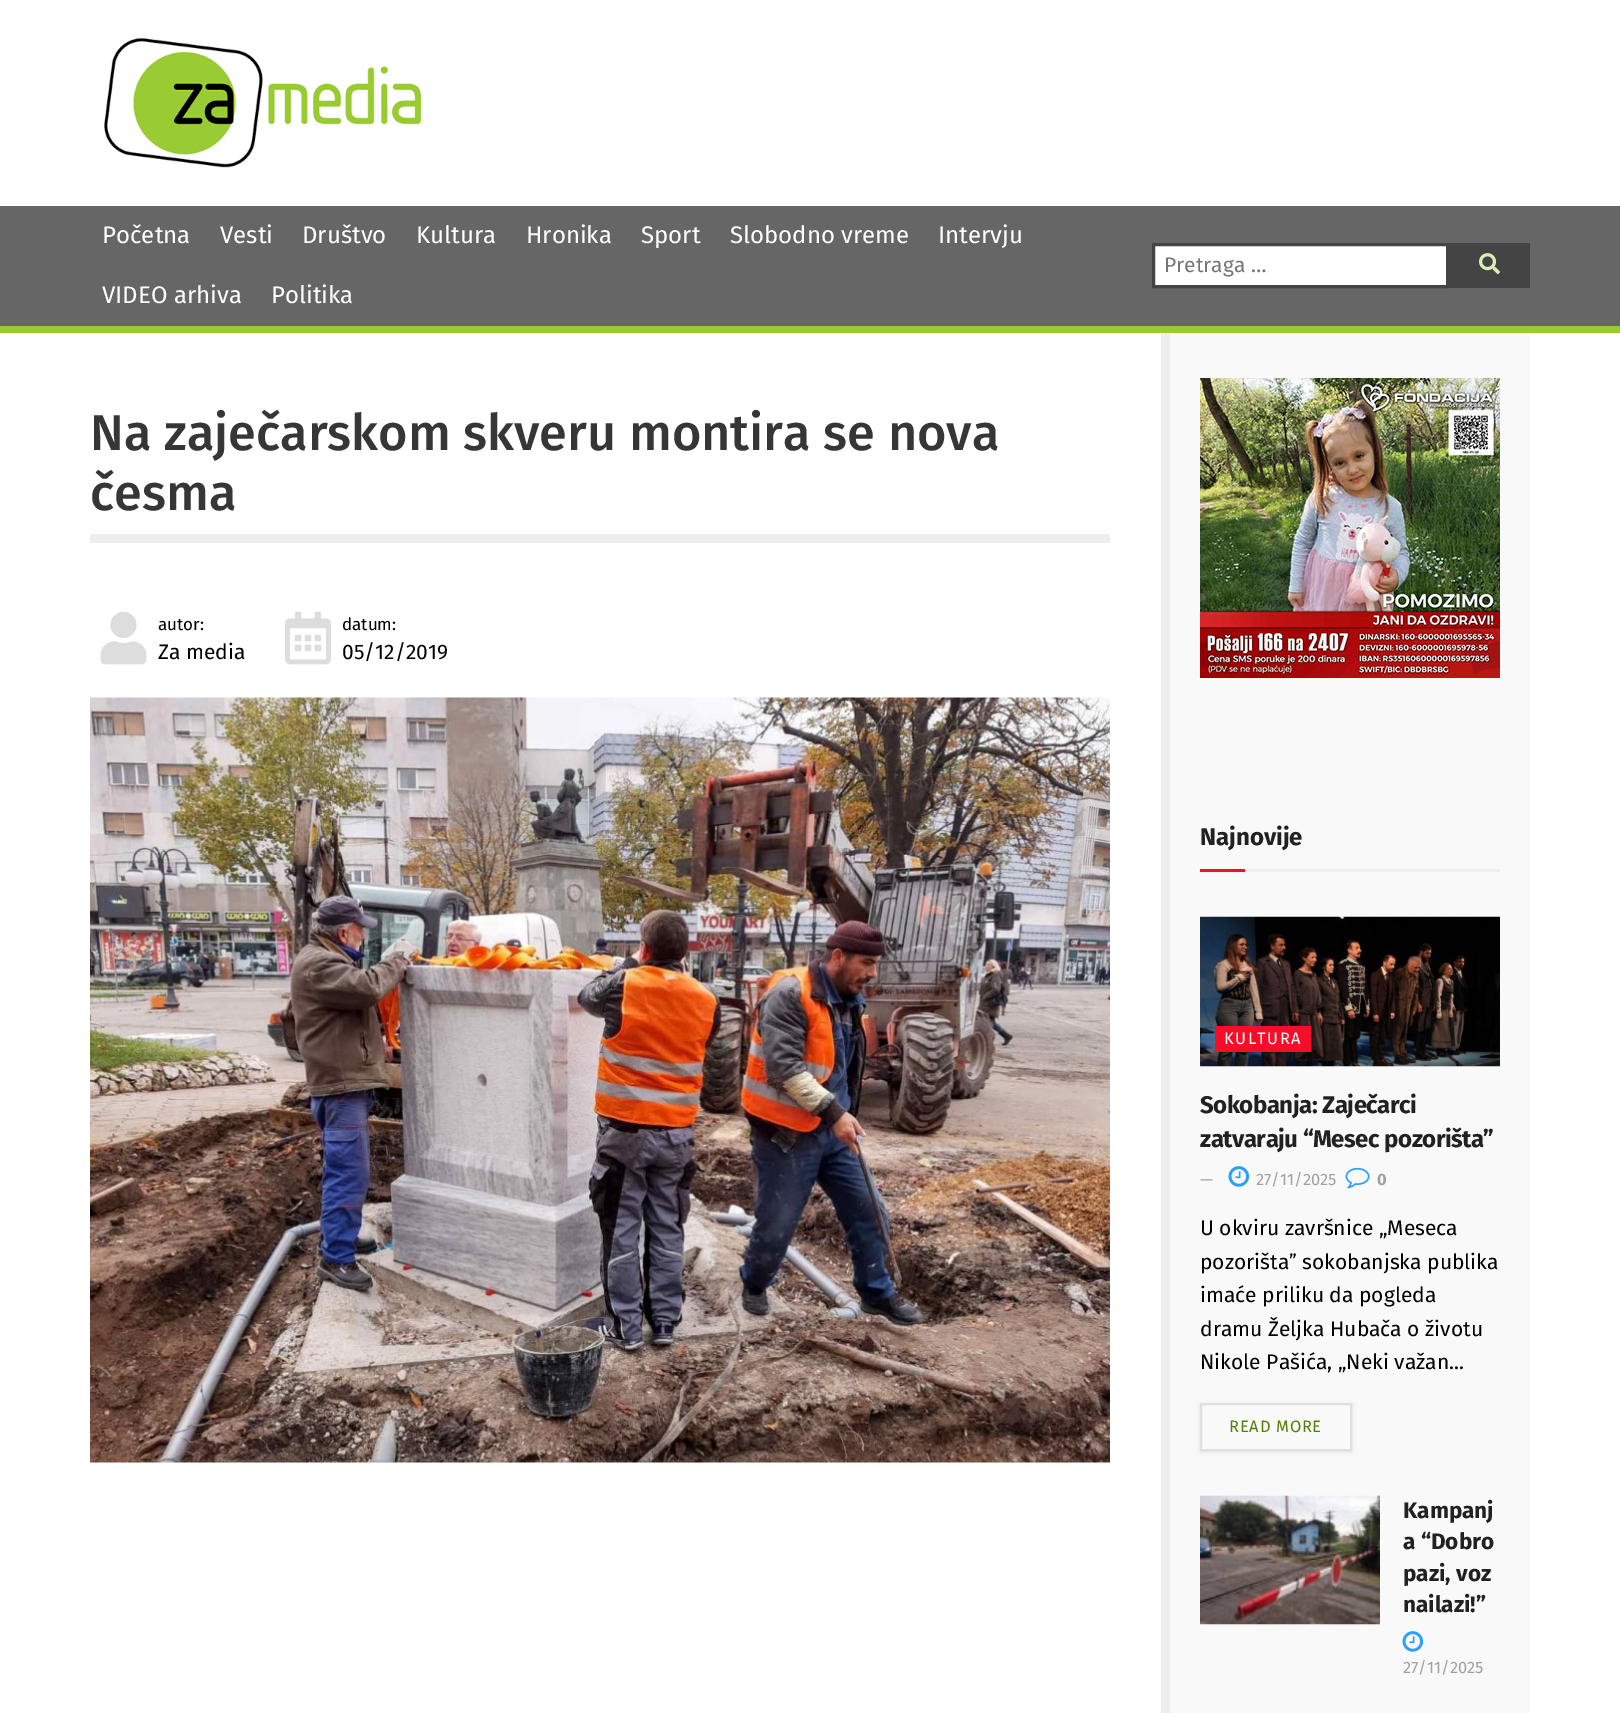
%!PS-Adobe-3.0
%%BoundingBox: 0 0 1620 1713
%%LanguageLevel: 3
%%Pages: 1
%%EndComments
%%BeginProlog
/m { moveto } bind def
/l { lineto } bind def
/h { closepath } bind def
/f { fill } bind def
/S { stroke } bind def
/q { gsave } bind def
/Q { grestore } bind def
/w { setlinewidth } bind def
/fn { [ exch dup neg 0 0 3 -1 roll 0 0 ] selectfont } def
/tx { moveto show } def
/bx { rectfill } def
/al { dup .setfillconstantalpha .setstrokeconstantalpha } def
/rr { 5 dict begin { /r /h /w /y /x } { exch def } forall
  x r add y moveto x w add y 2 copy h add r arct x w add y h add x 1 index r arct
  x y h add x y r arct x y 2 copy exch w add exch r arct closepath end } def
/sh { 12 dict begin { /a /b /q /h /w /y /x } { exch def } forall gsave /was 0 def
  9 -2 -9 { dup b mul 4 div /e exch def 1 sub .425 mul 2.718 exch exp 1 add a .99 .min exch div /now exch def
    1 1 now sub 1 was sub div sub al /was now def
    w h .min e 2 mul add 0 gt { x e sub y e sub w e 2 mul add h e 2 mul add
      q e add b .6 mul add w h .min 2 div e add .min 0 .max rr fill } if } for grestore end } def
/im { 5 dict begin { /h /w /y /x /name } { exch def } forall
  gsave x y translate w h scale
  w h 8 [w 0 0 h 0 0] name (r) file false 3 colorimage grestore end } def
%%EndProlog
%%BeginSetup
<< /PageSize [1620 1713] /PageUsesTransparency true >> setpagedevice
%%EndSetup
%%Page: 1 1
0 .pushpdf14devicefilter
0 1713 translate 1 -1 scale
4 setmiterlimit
1 setgray
0 0 1620 1713 bx
(image0.raw) 104 38 318 130 im
0.4 setgray
0 206 1620 120 bx
0.6 0.8 0.2 setrgbcolor
0 326 1620 7 bx
/FiraSans-Regular 24 fn
1 setgray
(Početna) 102 243 tx
(Vesti) 220 243 tx
(Društvo) 302 243 tx
(Kultura) 416 243 tx
(Hronika) 526 243 tx
(Sport) 641 243 tx
(Slobodno vreme) 730 243 tx
(Intervju) 938 243 tx
(VIDEO arhiva) 102 303 tx
(Politika) 271 303 tx
1153.5 244.5 m 1447.5 244.5 l 1447.5 286.5 l 1153.5 286.5 l h q f Q
0.267 setgray
3 w
S
/FiraSans-Regular 21 fn
0.459 setgray
(Pretraga …) 1164 272 tx
0.267 setgray
1449 243 81 45 bx
(image1.raw) 1479 253 21 22 im
0.933 setgray
90 534 1020 9 bx
/FiraSans-Medium 50.4 fn
0.212 setgray
(Na zaječarskom skveru montira se nova) 90 450 tx
(česma) 90 510 tx
(image2.raw) 100 611 47 54 im
/FiraSans-Regular 17 fn
0 setgray
(autor:) 158 630 tx
/FiraSans-Regular 21 fn
(Za media) 158 659 tx
(image3.raw) 285 611 46 54 im
/FiraSans-Regular 17 fn
(datum:) 342 630 tx
/FiraSans-Regular 21 fn
(05/12/2019) 342 659 tx
(image4.raw) 90 697 1020 766 im
0.976 setgray
1170 333 360 1380 bx
0.933 setgray
1161 333 9 1380 bx
(image5.raw) 1200 378 300 300 im
1245 869 255 3 bx
/FiraSans-Bold 24 fn
0.129 setgray
(Najnovije) 1200 845 tx
0.969 0.051 0.157 setrgbcolor
1200 869 45 3 bx
(image6.raw) 1200 916 300 151 im
1215 1026 96 26 bx
/FiraSans-Regular 16.5 fn
1 setgray
1224 1044 m 1.5 0 (KULTURA) ashow
/FiraSans-Bold 24 fn
0.129 setgray
1200 1113 m -0.5 0 (Sokobanja: Zaječarci) ashow
1200 1147 m -0.5 0 (zatvaraju “Mesec pozorišta”) ashow
/FiraSans-Regular 16.5 fn
0.627 setgray
(—) 1200 1185 tx
(image7.raw) 1228 1166 22 21 im
(27/11/2025) 1256 1185 tx
(image8.raw) 1345 1167 25 22 im
/FiraSans-Bold 16.5 fn
(0) 1377 1185 tx
/FiraSans-Regular 21 fn
0 setgray
(U okviru završnice „Meseca) 1200 1235 tx
(pozorištaˮ sokobanjska publika) 1200 1269 tx
(imaće priliku da pogleda) 1200 1302 tx
(dramu Željka Hubača o životu) 1200 1336 tx
(Nikole Pašića, „Neki važan...) 1200 1369 tx
q
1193 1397 m 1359 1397 l 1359 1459 l 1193 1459 l h 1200 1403 m 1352 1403 l 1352 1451 l 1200 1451 l h eoclip newpath
1200 1404 152 48 0 2 0.1 sh
Q
0.878 setgray
2 w
1201 1404 150 46 rectstroke
/FiraSans-Regular 16.5 fn
0.337 0.494 0.031 setrgbcolor
1229 1432 m 0.75 0 (READ MORE) ashow
(image9.raw) 1200 1495 180 130 im
/FiraSans-Bold 22.5 fn
0.129 setgray
(Kampanj) 1403 1518 tx
(a “Dobro) 1403 1549 tx
(pazi, voz) 1403 1581 tx
(nailazi!”) 1403 1612 tx
(image7.raw) 1402 1631 22 21 im
/FiraSans-Regular 16.5 fn
0.627 setgray
(27/11/2025) 1403 1673 tx
.poppdf14devicefilter showpage
%%EOF
